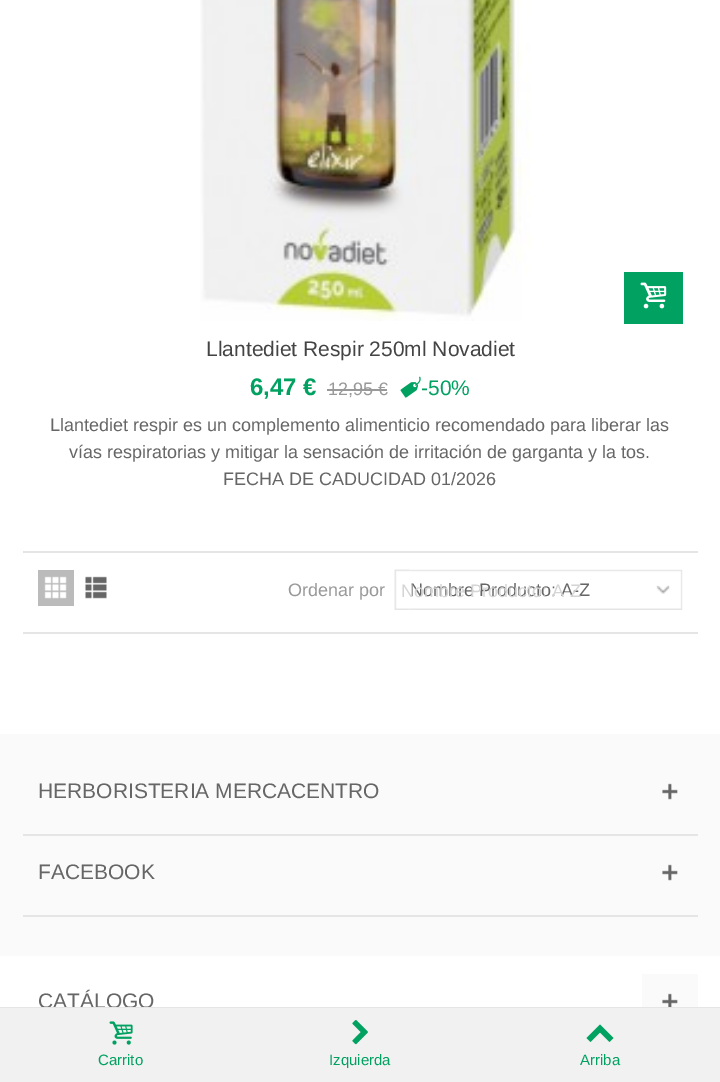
%!PS-Adobe-3.0
%%BoundingBox: 0 0 720 1082
%%LanguageLevel: 3
%%Pages: 1
%%EndComments
%%BeginProlog
/m { moveto } bind def
/l { lineto } bind def
/h { closepath } bind def
/f { fill } bind def
/fn { [ exch dup neg 0 0 3 -1 roll 0 0 ] selectfont } def
/tx { moveto show } def
/bx { rectfill } def
/im { 5 dict begin { /h /w /y /x /name } { exch def } forall
  gsave x y translate w h scale
  w h 8 [w 0 0 h 0 0] name (r) file false 3 colorimage grestore end } def
%%EndProlog
%%BeginSetup
<< /PageSize [720 1082] >> setpagedevice
%%EndSetup
%%Page: 1 1
0 1082 translate 1 -1 scale
4 setmiterlimit
1 setgray
0 0 720 1082 bx
(image0.raw) 200 0 331 321 im
0 0.631 0.38 setrgbcolor
624 272 59 52 bx
(image1.raw) 640 282 27 27 im
/LiberationSans-Regular 21 fn
0.267 setgray
(Llantediet Respir 250ml Novadiet) 206 356 tx
/LiberationSans-Bold 24 fn
0 0.631 0.38 setrgbcolor
(6,47 €) 250 395 tx
/LiberationSans-Regular 18 fn
0.6 setgray
(12,95 €) 328 395 tx
327 389 60 2 bx
(image2.raw) 400 376 21 22 im
/LiberationSans-Regular 21 fn
0 0.631 0.38 setrgbcolor
(-50%) 421 395 tx
/LiberationSans-Regular 18 fn
0.4 setgray
(Llantediet respir es un complemento alimenticio recomendado para liberar las) 50 431 tx
(vías respiratorias y mitigar la sensación de irritación de garganta y la tos.) 69 458 tx
(FECHA DE CADUCIDAD 01/2026) 223 485 tx
0.898 setgray
23 551 675 2 bx
0.733 setgray
38 570 36 36 bx
(image3.raw) 44 576 23 23 im
(image4.raw) 85 576 22 23 im
0.6 setgray
(Ordenar por) 288 596 tx
(image5.raw) 394 569 16 41 im
(image6.raw) 409 569 274 41 im
0.4 setgray
(Nombre Producto: A-Z) 410 596 tx
0.835 setgray
(Nombre Producto: A-Z) 401 597 tx
0.898 setgray
23 632 675 2 bx
0.98 setgray
0 734 720 222 bx
0.898 setgray
23 834 675 2 bx
/LiberationSans-Regular 21 fn
0.4 setgray
(HERBORISTERIA MERCACENTRO) 38 798 tx
(image7.raw) 662 783 16 17 im
0.898 setgray
23 915 675 2 bx
0.4 setgray
(FACEBOOK) 38 879 tx
(image7.raw) 662 864 16 17 im
(CATÁLOGO) 38 1008 tx
0.98 setgray
642 974 56 33 bx
(image8.raw) 662 993 16 14 im
0.898 setgray
0 1007 720 1 bx
0.945 setgray
0 1008 720 74 bx
(image9.raw) 109 1021 24 24 im
/LiberationSans-Regular 15 fn
0 0.631 0.38 setrgbcolor
(Carrito) 98 1065 tx
(image10.raw) 352 1020 16 25 im
(Izquierda) 329 1065 tx
586.5 1038 m 600 1024.5 l 613.5 1038 l 609.5 1042 l 600 1032.5 l 590.5 1042 l h f
(Arriba) 580 1065 tx
showpage
%%EOF
